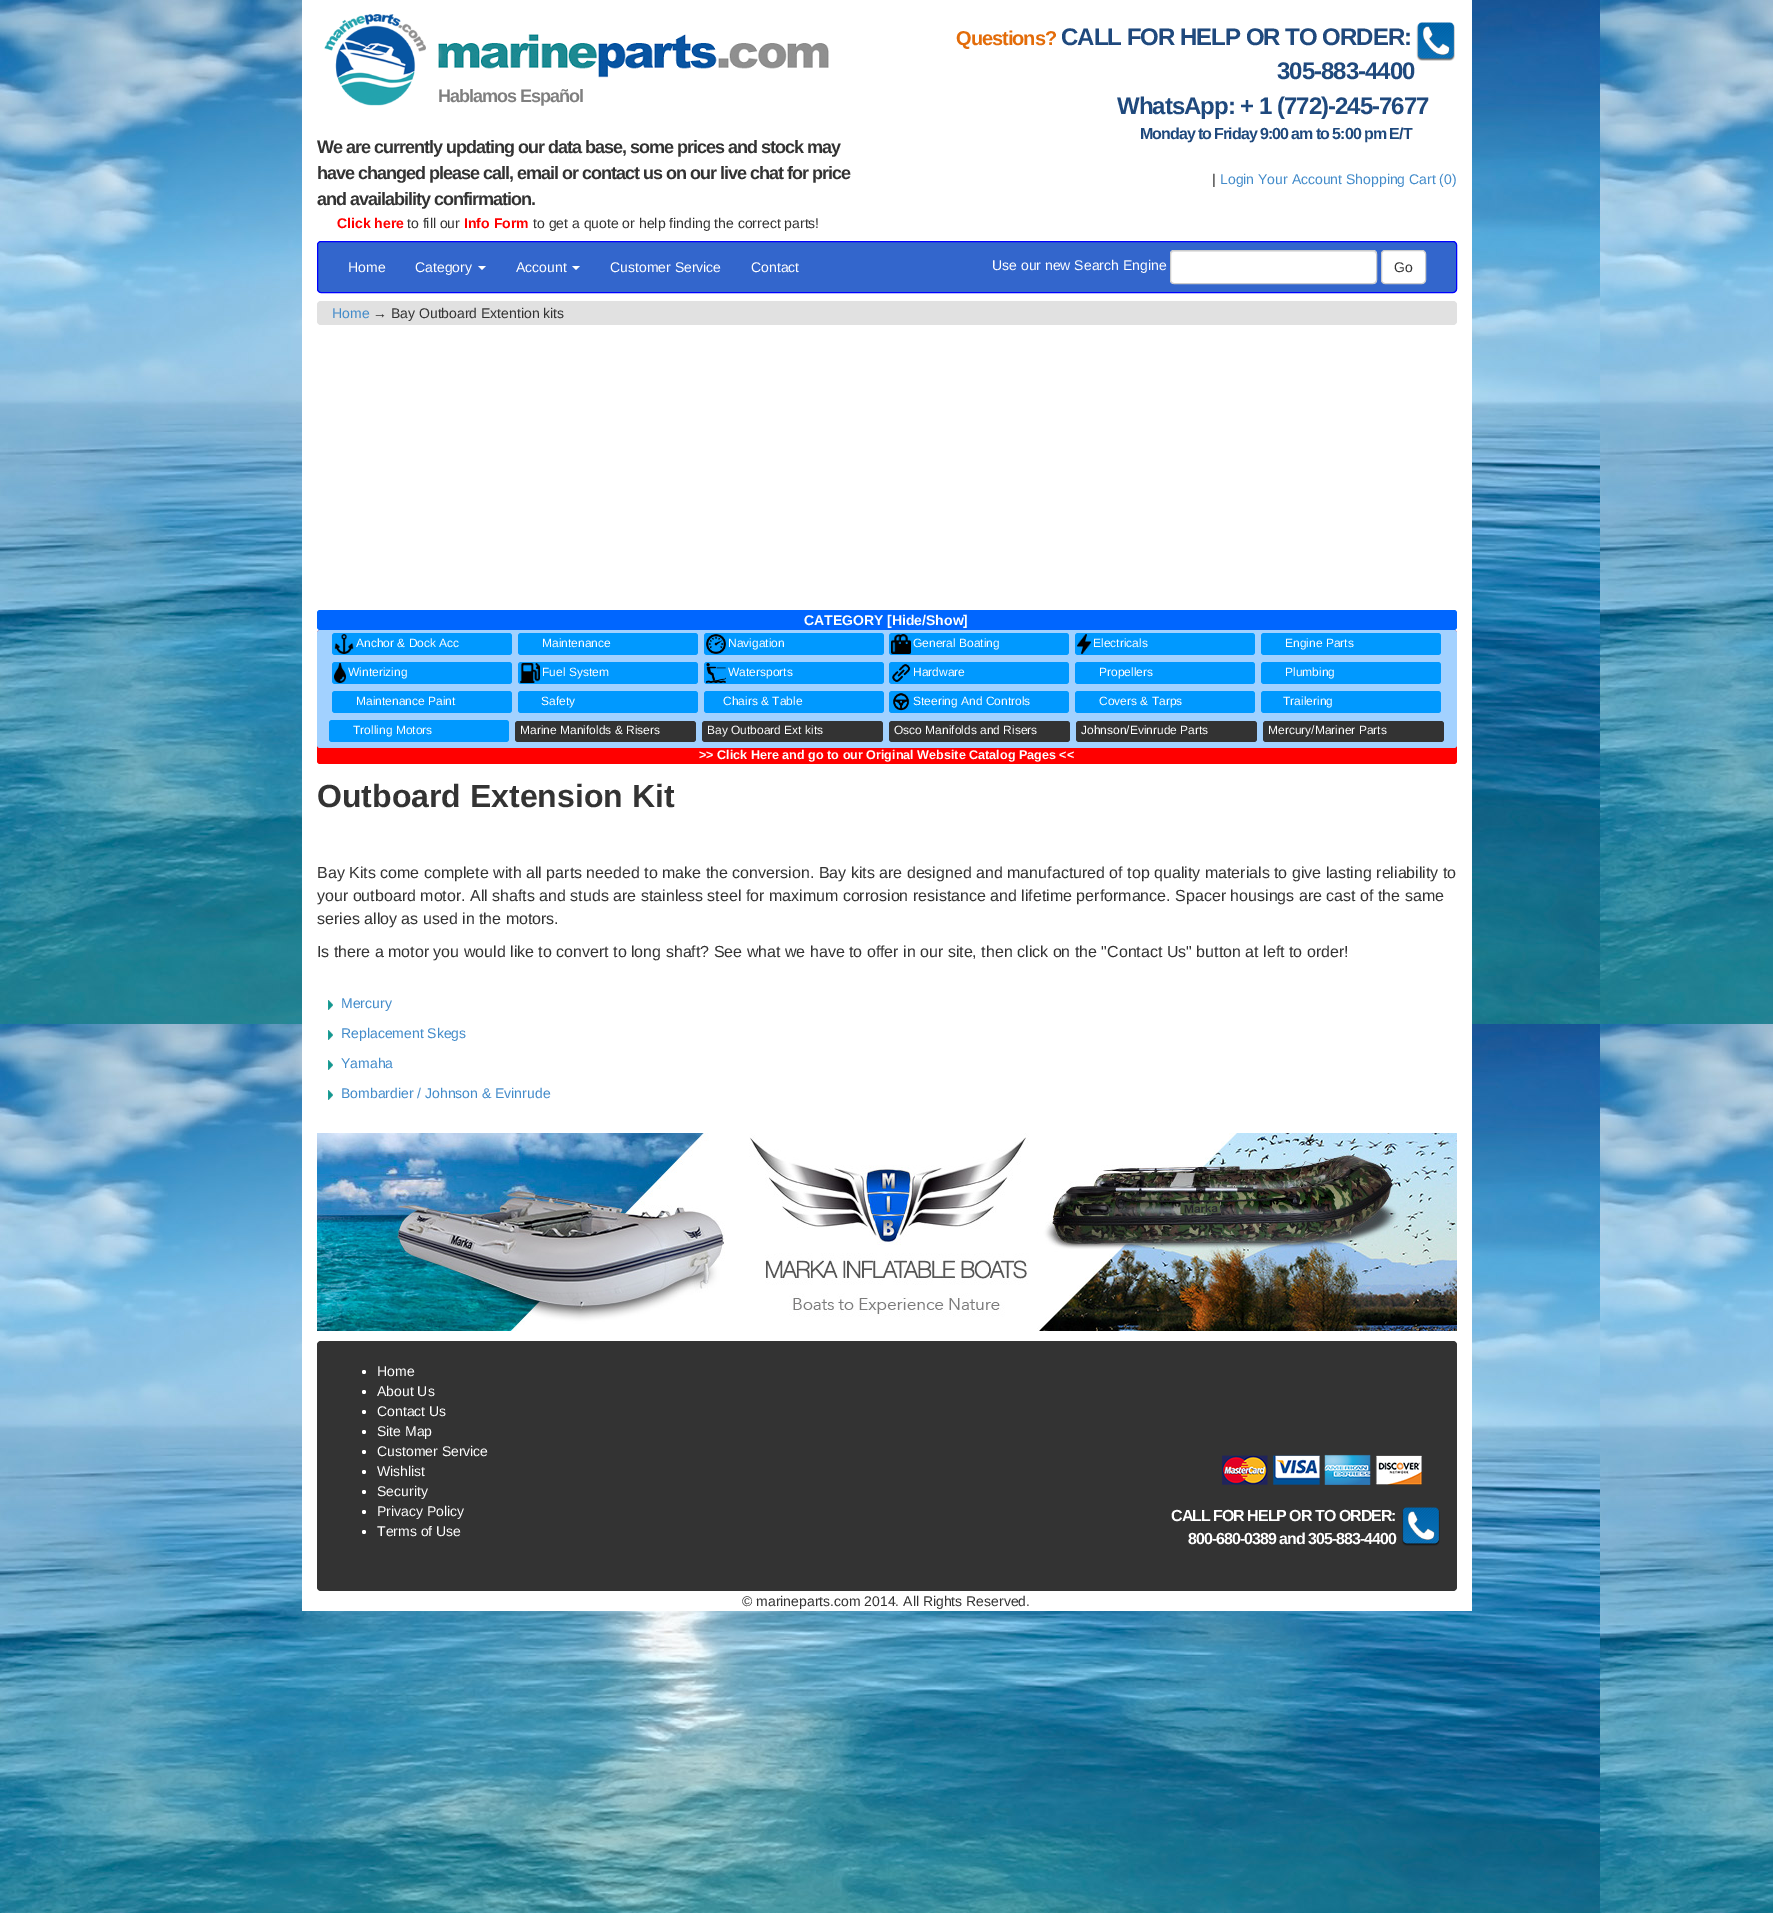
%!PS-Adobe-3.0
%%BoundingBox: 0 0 1773 1913
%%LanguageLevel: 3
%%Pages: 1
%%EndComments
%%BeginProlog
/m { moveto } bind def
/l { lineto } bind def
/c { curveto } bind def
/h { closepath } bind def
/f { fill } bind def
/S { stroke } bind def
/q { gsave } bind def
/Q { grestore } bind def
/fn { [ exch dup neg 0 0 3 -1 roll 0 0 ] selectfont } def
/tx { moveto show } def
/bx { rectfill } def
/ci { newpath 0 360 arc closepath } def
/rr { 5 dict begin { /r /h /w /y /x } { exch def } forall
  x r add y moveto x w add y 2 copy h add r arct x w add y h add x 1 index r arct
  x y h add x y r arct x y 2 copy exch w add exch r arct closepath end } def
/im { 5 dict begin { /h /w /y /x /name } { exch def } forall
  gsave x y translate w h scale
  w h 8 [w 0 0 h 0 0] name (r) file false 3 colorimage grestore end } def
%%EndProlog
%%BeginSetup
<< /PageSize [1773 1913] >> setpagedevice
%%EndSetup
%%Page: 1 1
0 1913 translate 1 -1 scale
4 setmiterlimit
1 setgray
0 0 1773 1913 bx
(image0.raw) 0 0 1773 1913 im
302 0 1170 1611 bx
(image1.raw) 324 14 102 92 im
(image2.raw) 438 34 391 44 im
/LiberationSans-Bold 18 fn
0.498 setgray
438 102 m -1 0 (Hablamos Español) ashow
0.2 setgray
317 153 m -1 0 (We are currently updating our data base, some prices and stock may) ashow
317 179 m -1 0 (have changed please call, email or contact us on our live chat for price) ashow
317 205 m -1 0 (and availability confirmation.) ashow
/LiberationSans-Bold 14 fn
1 0 0 setrgbcolor
(Click here) 337 228 tx
/LiberationSans-Regular 14 fn
0.2 setgray
(to fill our) 407 228 tx
/LiberationSans-Bold 14 fn
1 0 0 setrgbcolor
(Info Form) 464 228 tx
/LiberationSans-Regular 14 fn
0.2 setgray
(to get a quote or help finding the correct parts!) 533 228 tx
/LiberationSans-Bold 20 fn
0.89 0.424 0.035 setrgbcolor
956 45 m -1 0 (Questions?) ashow
/LiberationSans-Bold 24 fn
0.122 0.286 0.49 setrgbcolor
1061 45 m -1 0 (CALL FOR HELP OR TO ORDER:) ashow
(image3.raw) 1416 22 39 39 im
1277 79 m -1 0 (305-883-4400) ashow
1117 114 m -1 0 (WhatsApp: + 1 \(772\)-245-7677) ashow
/LiberationSans-Bold 16 fn
1140 139 m -1 0 (Monday to Friday 9:00 am to 5:00 pm E/T) ashow
/LiberationSans-Regular 14 fn
0.2 setgray
(|) 1212 184 tx
0.259 0.545 0.792 setrgbcolor
(Login Your Account Shopping Cart \(0\)) 1220 184 tx
0.2 0.4 0.8 setrgbcolor
317.5 241.5 1139 51 3.5 rr q f Q
0 0 1 setrgbcolor
S
1 setgray
(Home) 348 272 tx
(Category) 415 272 tx
478 266 m 486 266 l 482 270 l h f
(Account) 516 272 tx
572 266 m 580 266 l 576 270 l h f
(Customer Service) 610 272 tx
(Contact) 751 272 tx
(Use our new Search Engine) 992 270 tx
1170 250 207 34 4 rr f
0.925 setgray
1174 252 m 1373 252 l 1375 252 1376 253 1376 255 c 1376 253 1375 251 1373 251 c 1174 251 l 1172 251 1171 253 1171 255 c 1171 253 1172 252 1174 252 c h f
0.8 setgray
1170.5 250.5 206 33 3.5 rr S
1 setgray
1381.5 250.5 44 33 3.5 rr q f Q
0.8 setgray
S
0.2 setgray
(Go) 1394 272 tx
0.882 setgray
317 301 1140 24 4 rr f
0.259 0.545 0.792 setrgbcolor
(Home) 332 318 tx
0.2 setgray
(→ Bay Outboard Extention kits) 373 318 tx
0 0.4 1 setrgbcolor
317 610 1140 20 3 rr f
/LiberationSans-Bold 14 fn
1 setgray
(CATEGORY [Hide/Show]) 804 625 tx
1 0 0 setrgbcolor
317 630 1140 134 3 rr f
0.635 0.82 1 setrgbcolor
317 630 1140 118 3 rr f
0 0.6 1 setrgbcolor
332 633 180 22 3 rr f
(image4.raw) 334 634 20 20 im
/LiberationSans-Regular 12 fn
1 setgray
(Anchor & Dock Acc) 356 647 tx
0 0.6 1 setrgbcolor
518 633 180 22 3 rr f
1 setgray
(Maintenance) 542 647 tx
0 0.6 1 setrgbcolor
704 633 180 22 3 rr f
(image5.raw) 706 634 20 20 im
1 setgray
(Navigation) 728 647 tx
0 0.6 1 setrgbcolor
889 633 180 22 3 rr f
(image6.raw) 891 634 20 20 im
1 setgray
(General Boating) 913 647 tx
0 0.6 1 setrgbcolor
1075 633 180 22 3 rr f
(image7.raw) 1077 634 14 20 im
1 setgray
(Electricals) 1093 647 tx
0 0.6 1 setrgbcolor
1261 633 180 22 3 rr f
1 setgray
(Engine Parts) 1285 647 tx
0 0.6 1 setrgbcolor
332 662 180 22 3 rr f
(image8.raw) 334 663 12 20 im
1 setgray
(Winterizing) 348 676 tx
0 0.6 1 setrgbcolor
518 662 180 22 3 rr f
(image9.raw) 520 663 20 20 im
1 setgray
(Fuel System) 542 676 tx
0 0.6 1 setrgbcolor
704 662 180 22 3 rr f
(image10.raw) 706 663 20 20 im
1 setgray
(Watersports) 728 676 tx
0 0.6 1 setrgbcolor
889 662 180 22 3 rr f
(image11.raw) 892 664 19 18 im
1 setgray
(Hardware) 913 676 tx
0 0.6 1 setrgbcolor
1075 662 180 22 3 rr f
1 setgray
(Propellers) 1099 676 tx
0 0.6 1 setrgbcolor
1261 662 180 22 3 rr f
1 setgray
(Plumbing) 1285 676 tx
0 0.6 1 setrgbcolor
332 691 180 22 3 rr f
1 setgray
(Maintenance Paint) 356 705 tx
0 0.6 1 setrgbcolor
518 691 180 22 3 rr f
1 setgray
(Safety) 541 705 tx
0 0.6 1 setrgbcolor
704 691 180 22 3 rr f
1 setgray
(Chairs & Table) 723 705 tx
0 0.6 1 setrgbcolor
889 691 180 22 3 rr f
(image12.raw) 893 693 17 18 im
1 setgray
(Steering And Controls) 913 705 tx
0 0.6 1 setrgbcolor
1075 691 180 22 3 rr f
1 setgray
(Covers & Tarps) 1099 705 tx
0 0.6 1 setrgbcolor
1261 691 180 22 3 rr f
1 setgray
(Trailering) 1283 705 tx
0 0.6 1 setrgbcolor
329 720 180 22 3 rr f
1 setgray
(Trolling Motors) 353 734 tx
0.2 setgray
515 721 181 21 3 rr f
1 setgray
(Marine Manifolds & Risers) 520 734 tx
0.2 setgray
702 721 181 21 3 rr f
1 setgray
(Bay Outboard Ext kits) 707 734 tx
0.2 setgray
889 721 181 21 3 rr f
1 setgray
(Osco Manifolds and Risers) 894 734 tx
0.2 setgray
1076 721 181 21 3 rr f
1 setgray
(Johnson/Evinrude Parts) 1081 734 tx
0.2 setgray
1263 721 181 21 3 rr f
1 setgray
(Mercury/Mariner Parts) 1268 734 tx
/LiberationSans-Bold 12.6 fn
(>> Click Here and go to our Original Website Catalog Pages <<) 699 759 tx
/LiberationSans-Bold 32 fn
0.2 setgray
(Outboard Extension Kit) 317 807 tx
/LiberationSans-Regular 16 fn
(Bay Kits come complete with all parts needed to make the conversion. Bay kits are designed and manufactured of top quality materials to give lasting reliability to) 317 878 tx
(your outboard motor. All shafts and studs are stainless steel for maximum corrosion resistance and lifetime performance. Spacer housings are cast of the same) 317 901 tx
(series alloy as used in the motors.) 317 924 tx
(Is there a motor you would like to convert to long shaft? See what we have to offer in our site, then click on the "Contact Us" button at left to order!) 317 957 tx
(image13.raw) 328 1000 5 10 im
/LiberationSans-Regular 14 fn
0.259 0.545 0.792 setrgbcolor
(Mercury) 341 1008 tx
(image13.raw) 328 1030 5 10 im
(Replacement Skegs) 341 1038 tx
(image13.raw) 328 1060 5 10 im
(Yamaha) 341 1068 tx
(image13.raw) 328 1090 5 10 im
(Bombardier / Johnson & Evinrude) 341 1098 tx
(image14.raw) 317 1133 1140 198 im
0.2 setgray
317 1341 1140 250 4 rr f
1 setgray
364 1372 2 ci f
(Home) 377 1376 tx
364 1392 2 ci f
(About Us) 377 1396 tx
364 1412 2 ci f
(Contact Us) 377 1416 tx
364 1432 2 ci f
(Site Map) 377 1436 tx
364 1452 2 ci f
(Customer Service) 377 1456 tx
364 1472 2 ci f
(Wishlist) 377 1476 tx
364 1492 2 ci f
(Security) 377 1496 tx
364 1512 2 ci f
(Privacy Policy) 377 1516 tx
364 1532 2 ci f
(Terms of Use) 377 1536 tx
(image15.raw) 1222 1454 200 31 im
/LiberationSans-Bold 16 fn
1171 1521 m -1 0 (CALL FOR HELP OR TO ORDER:) ashow
(image16.raw) 1402 1507 38 39 im
1188 1544 m -1 0 (800-680-0389 and 305-883-4400) ashow
/LiberationSans-Regular 14 fn
0.2 setgray
(© marineparts.com 2014. All Rights Reserved.) 742 1606 tx
showpage
%%EOF
